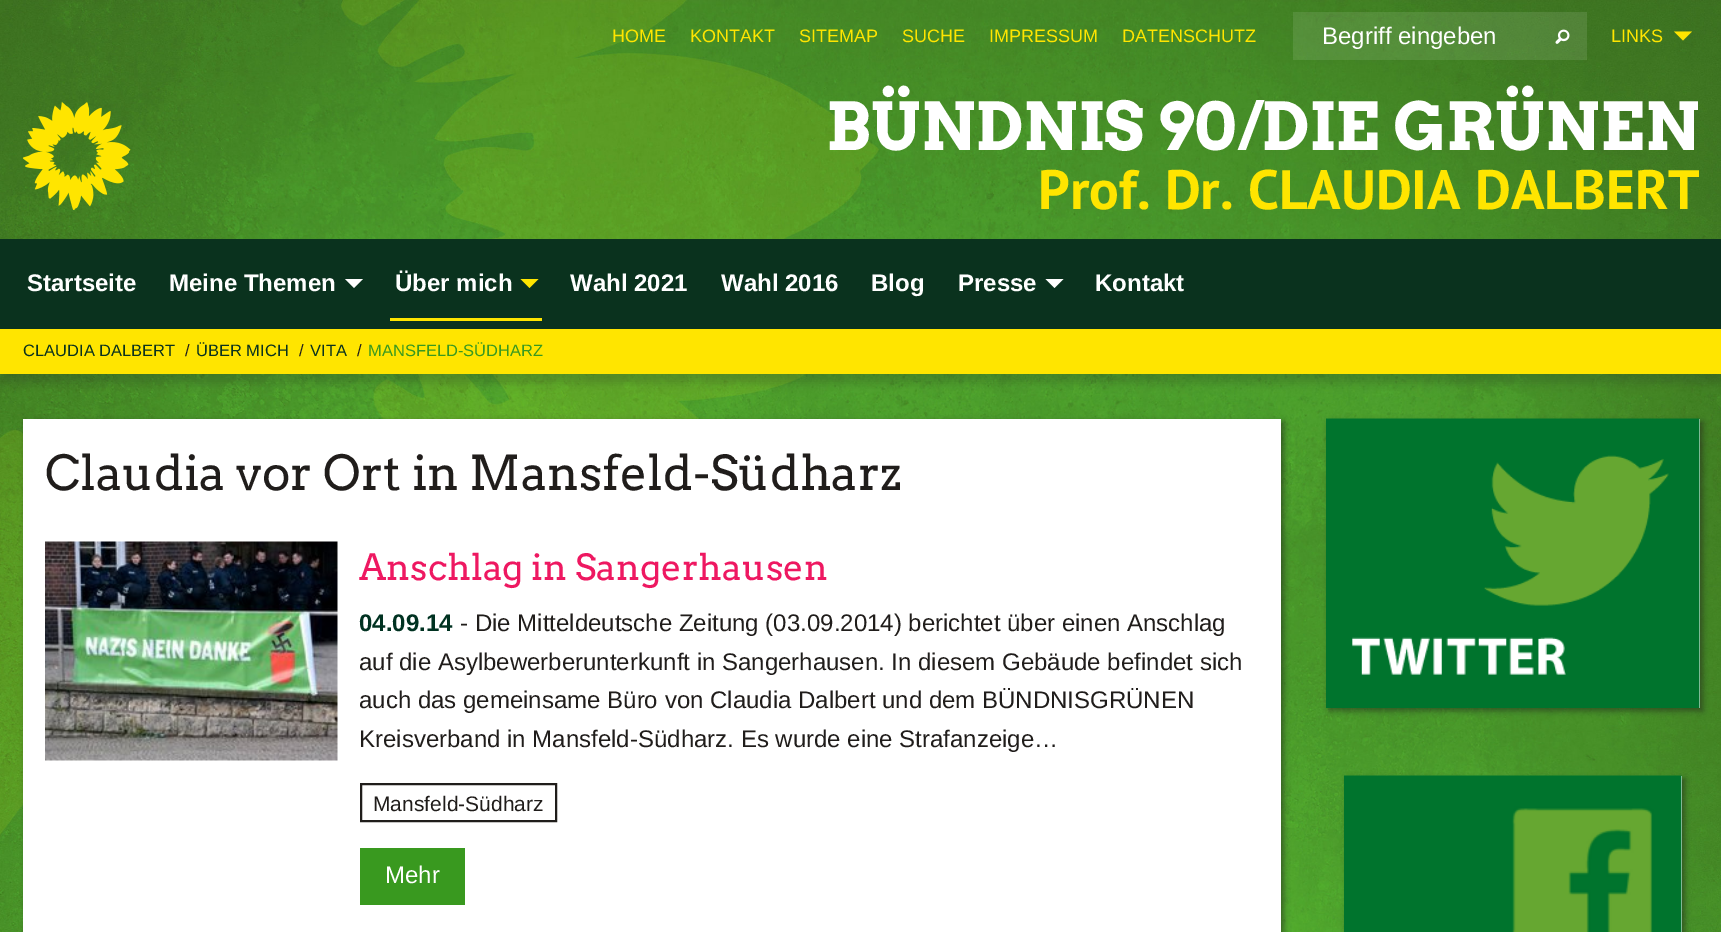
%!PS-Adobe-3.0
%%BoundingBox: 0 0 1721 932
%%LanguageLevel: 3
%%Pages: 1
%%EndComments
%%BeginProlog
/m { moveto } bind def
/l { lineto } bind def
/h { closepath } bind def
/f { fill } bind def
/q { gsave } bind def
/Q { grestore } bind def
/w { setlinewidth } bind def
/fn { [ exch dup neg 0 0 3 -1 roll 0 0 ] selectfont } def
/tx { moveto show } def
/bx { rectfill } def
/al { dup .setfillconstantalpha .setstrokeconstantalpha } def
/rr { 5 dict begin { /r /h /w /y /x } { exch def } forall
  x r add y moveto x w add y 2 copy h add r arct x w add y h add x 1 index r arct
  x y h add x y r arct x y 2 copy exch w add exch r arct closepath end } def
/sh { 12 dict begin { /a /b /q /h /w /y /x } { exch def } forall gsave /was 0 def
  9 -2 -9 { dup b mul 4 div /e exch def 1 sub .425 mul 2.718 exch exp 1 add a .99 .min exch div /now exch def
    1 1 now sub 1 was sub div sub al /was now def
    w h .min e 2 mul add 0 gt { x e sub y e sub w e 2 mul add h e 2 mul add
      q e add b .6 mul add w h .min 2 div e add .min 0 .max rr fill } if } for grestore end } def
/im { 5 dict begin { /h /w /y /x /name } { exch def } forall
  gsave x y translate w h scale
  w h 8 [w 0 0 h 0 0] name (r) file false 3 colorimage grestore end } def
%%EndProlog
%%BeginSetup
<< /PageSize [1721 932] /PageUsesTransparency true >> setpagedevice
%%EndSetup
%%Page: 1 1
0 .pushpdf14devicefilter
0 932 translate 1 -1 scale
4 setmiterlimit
1 setgray
0 0 1721 932 bx
(image0.raw) 0 0 1721 932 im
/LiberationSans-Regular 18 fn
1 0.898 0 setrgbcolor
(HOME) 612 42 tx
(KONTAKT) 690 42 tx
(SITEMAP) 799 42 tx
(SUCHE) 902 42 tx
(IMPRESSUM) 989 42 tx
(DATENSCHUTZ) 1122 42 tx
0.1 al
1 setgray
1293 12 294 48 bx
/LiberationSans-Regular 24 fn
1 al
(Begriff eingeben) 1322 44 tx
(image1.raw) 1555 29 15 15 im
/LiberationSans-Regular 18 fn
1 0.898 0 setrgbcolor
(LINKS) 1611 42 tx
1674 31.5 m 1692 31.5 l 1683 40.5 l h f
q
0 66 m 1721 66 l 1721 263 l 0 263 l h 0 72 m 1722 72 l 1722 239 l 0 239 l h eoclip newpath
0.125 0.114 0.106 setrgbcolor
0 81 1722 167 0 4.5 0.2 sh
Q
(image2.raw) 23 102 108 108 im
/Arvo-Bold 66 fn
1 setgray
(BÜNDNIS 90/DIE GRÜNEN) 826 150 tx
/PTSans-Bold 55.5 fn
1 0.898 0 setrgbcolor
(Prof. Dr. CLAUDIA DALBERT) 1038 209 tx
0.125 0.114 0.106 setrgbcolor
0 338 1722 45 0 4.5 0.2 sh
0.039 0.196 0.118 setrgbcolor
0 239 1721 90 bx
/LiberationSans-Bold 24 fn
1 setgray
(Startseite) 27 291 tx
(Meine Themen) 169 291 tx
345 279 m 363 279 l 354 288 l h f
(Über mich) 395 291 tx
1 0.898 0 setrgbcolor
520.5 279 m 538.5 279 l 529.5 288 l h f
390 318 152 3 bx
1 setgray
(Wahl 2021) 570 291 tx
(Wahl 2016) 721 291 tx
(Blog) 871 291 tx
(Presse) 958 291 tx
1045.5 279 m 1063.5 279 l 1054.5 288 l h f
(Kontakt) 1095 291 tx
1 0.898 0 setrgbcolor
0 329 1721 45 bx
/LiberationSans-Regular 16.5 fn
0.039 0.196 0.118 setrgbcolor
(CLAUDIA DALBERT) 23 356 tx
0.125 0.114 0.106 setrgbcolor
(/) 185 356 tx
0.039 0.196 0.118 setrgbcolor
(ÜBER MICH) 196 356 tx
0.125 0.114 0.106 setrgbcolor
(/) 299 356 tx
0.039 0.196 0.118 setrgbcolor
(VITA) 310 356 tx
0.125 0.114 0.106 setrgbcolor
(/) 357 356 tx
0.224 0.6 0.122 setrgbcolor
(MANSFELD-SÜDHARZ) 368 356 tx
0.125 0.114 0.106 setrgbcolor
26 422 1258 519 0 3 0.5 sh
1 setgray
23 419 1258 513 bx
/Arvo-Regular 48 fn
0.125 0.114 0.106 setrgbcolor
(Claudia vor Ort in Mansfeld-Südharz) 45 490 tx
(image3.raw) 45 541 293 220 im
/Arvo-Regular 36 fn
0.933 0.094 0.38 setrgbcolor
(Anschlag in Sangerhausen) 359 580 tx
/LiberationSans-Bold 24 fn
0 0.196 0.129 setrgbcolor
(04.09.14) 359 631 tx
/LiberationSans-Regular 24 fn
0.125 0.114 0.106 setrgbcolor
(- Die Mitteldeutsche Zeitung \(03.09.2014\) berichtet über einen Anschlag) 460 631 tx
(auf die Asylbewerberunterkunft in Sangerhausen. In diesem Gebäude befindet sich) 359 670 tx
(auch das gemeinsame Büro von Claudia Dalbert und dem BÜNDNISGRÜNEN) 359 708 tx
(Kreisverband in Mansfeld-Südharz. Es wurde eine Strafanzeige…) 359 747 tx
2 w
361 784 195 37 rectstroke
/LiberationSans-Regular 21 fn
(Mansfeld-Südharz) 373 811 tx
0.224 0.6 0.122 setrgbcolor
360 848 105 57 bx
/LiberationSans-Regular 24 fn
1 setgray
(Mehr) 385 883 tx
0.125 0.114 0.106 setrgbcolor
1329 422 374 289 0 3 0.5 sh
1 setgray
1699 419 1 289 bx
(image4.raw) 1326 418 374 290 im
0.125 0.114 0.106 setrgbcolor
1347 779 338 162 0 3 0.5 sh
1 setgray
1681 776 1 156 bx
(image5.raw) 1344 775 338 157 im
.poppdf14devicefilter showpage
%%EOF
